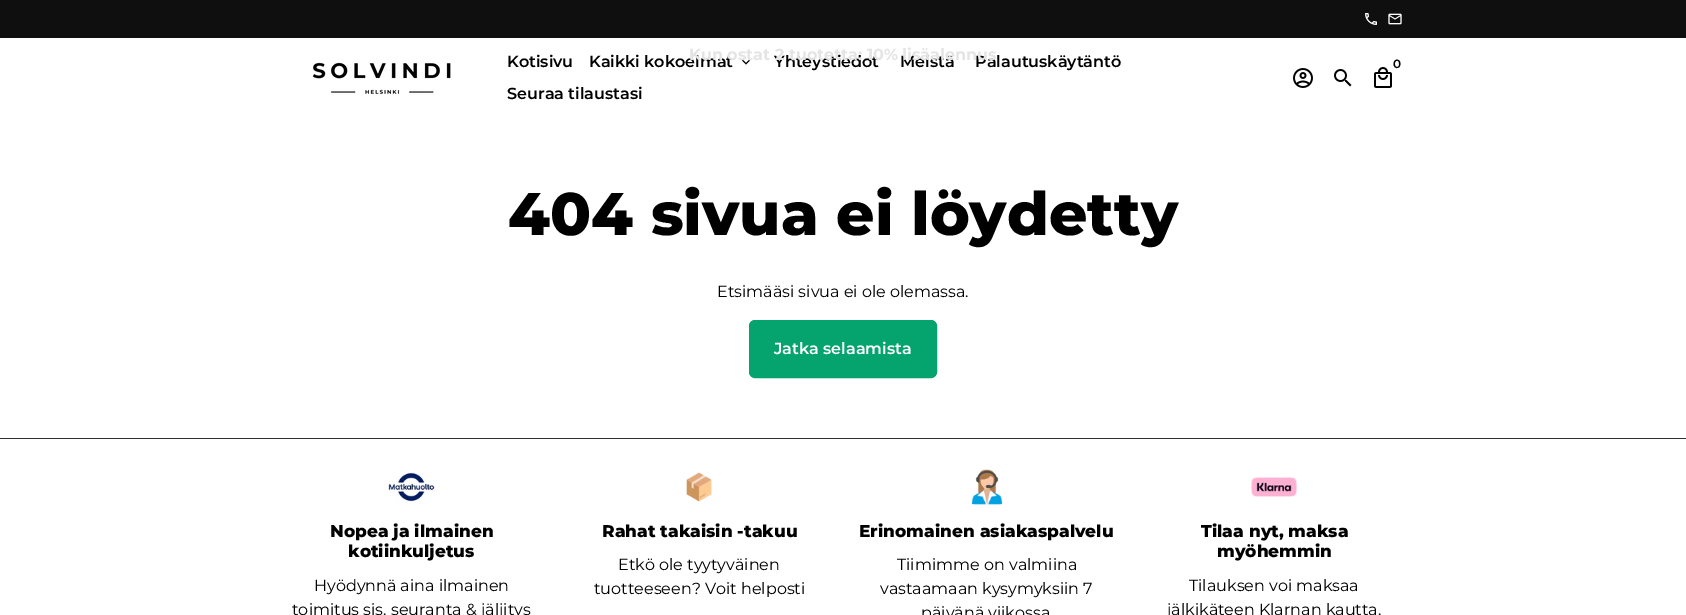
%!PS-Adobe-3.0
%%BoundingBox: 0 0 1686 615
%%LanguageLevel: 3
%%Pages: 1
%%EndComments
%%BeginProlog
/f { fill } bind def
/S { stroke } bind def
/q { gsave } bind def
/Q { grestore } bind def
/fn { [ exch dup neg 0 0 3 -1 roll 0 0 ] selectfont } def
/tx { moveto show } def
/bx { rectfill } def
/rr { 5 dict begin { /r /h /w /y /x } { exch def } forall
  x r add y moveto x w add y 2 copy h add r arct x w add y h add x 1 index r arct
  x y h add x y r arct x y 2 copy exch w add exch r arct closepath end } def
/im { 5 dict begin { /h /w /y /x /name } { exch def } forall
  gsave x y translate w h scale
  w h 8 [w 0 0 h 0 0] name (r) file false 3 colorimage grestore end } def
%%EndProlog
%%BeginSetup
<< /PageSize [1686 615] >> setpagedevice
%%EndSetup
%%Page: 1 1
0 615 translate 1 -1 scale
4 setmiterlimit
1 setgray
0 0 1686 615 bx
0.059 setgray
0 0 1686 38 bx
(image0.raw) 1365 13 12 12 im
(image1.raw) 1388 13 14 12 im
/Montserrat-SemiBold 16 fn
0 setgray
(Kaikki kokoelmat) 589 67 tx
(image3.raw) 742 59 8 6 im
(Yhteystiedot) 774 67 tx
(Meistä) 900 67 tx
(Palautuskäytäntö) 975 67 tx
/Montserrat-Bold 16 fn
0.894 setgray
(Kun ostat 2 tuotetta: 10% lisäalennus) 689 60 tx
(image2.raw) 312 62 139 33 im
/Montserrat-SemiBold 16 fn
0 setgray
(Kotisivu) 507 67 tx
(Seuraa tilaustasi) 507 99 tx
/Montserrat-SemiBold 12 fn
(0) 1393 68 tx
(image4.raw) 1374 67 18 21 im
(image5.raw) 1293 68 20 20 im
(image6.raw) 1334 69 18 18 im
/Montserrat-ExtraBold 60 fn
(404 sivua ei löydetty) 508 235 tx
/Montserrat-Regular 16 fn
(Etsimääsi sivua ei ole olemassa.) 717 297 tx
0.02 0.643 0.435 setrgbcolor
749.5 320.5 187 57 5.5 rr q f Q
S
/Montserrat-SemiBold 16 fn
1 setgray
(Jatka selaamista) 774 354 tx
0.18 setgray
0 438 1686 1 bx
(image7.raw) 385 469 51 35 im
/Montserrat-ExtraBold 17 fn
0 setgray
(Nopea ja ilmainen) 330 537 tx
(kotiinkuljetus) 348 557 tx
/Montserrat-Regular 16 fn
(Hyödynnä aina ilmainen) 314 591 tx
(toimitus sis. seuranta & jäljitys) 292 615 tx
(image8.raw) 686 472 26 30 im
/Montserrat-ExtraBold 17 fn
(Rahat takaisin -takuu) 602 537 tx
/Montserrat-Regular 16 fn
(Etkö ole tyytyväinen) 618 570 tx
(tuotteeseen? Voit helposti) 594 594 tx
(image9.raw) 971 469 32 36 im
/Montserrat-ExtraBold 17 fn
(Erinomainen asiakaspalvelu) 859 537 tx
/Montserrat-Regular 16 fn
(Tiimimme on valmiina) 897 570 tx
(vastaamaan kysymyksiin 7) 880 594 tx
(päivänä viikossa) 921 618 tx
(image10.raw) 1251 477 46 20 im
/Montserrat-ExtraBold 17 fn
(Tilaa nyt, maksa) 1201 537 tx
(myöhemmin) 1217 557 tx
/Montserrat-Regular 16 fn
(Tilauksen voi maksaa) 1189 591 tx
(jälkikäteen Klarnan kautta.) 1167 615 tx
showpage
%%EOF
